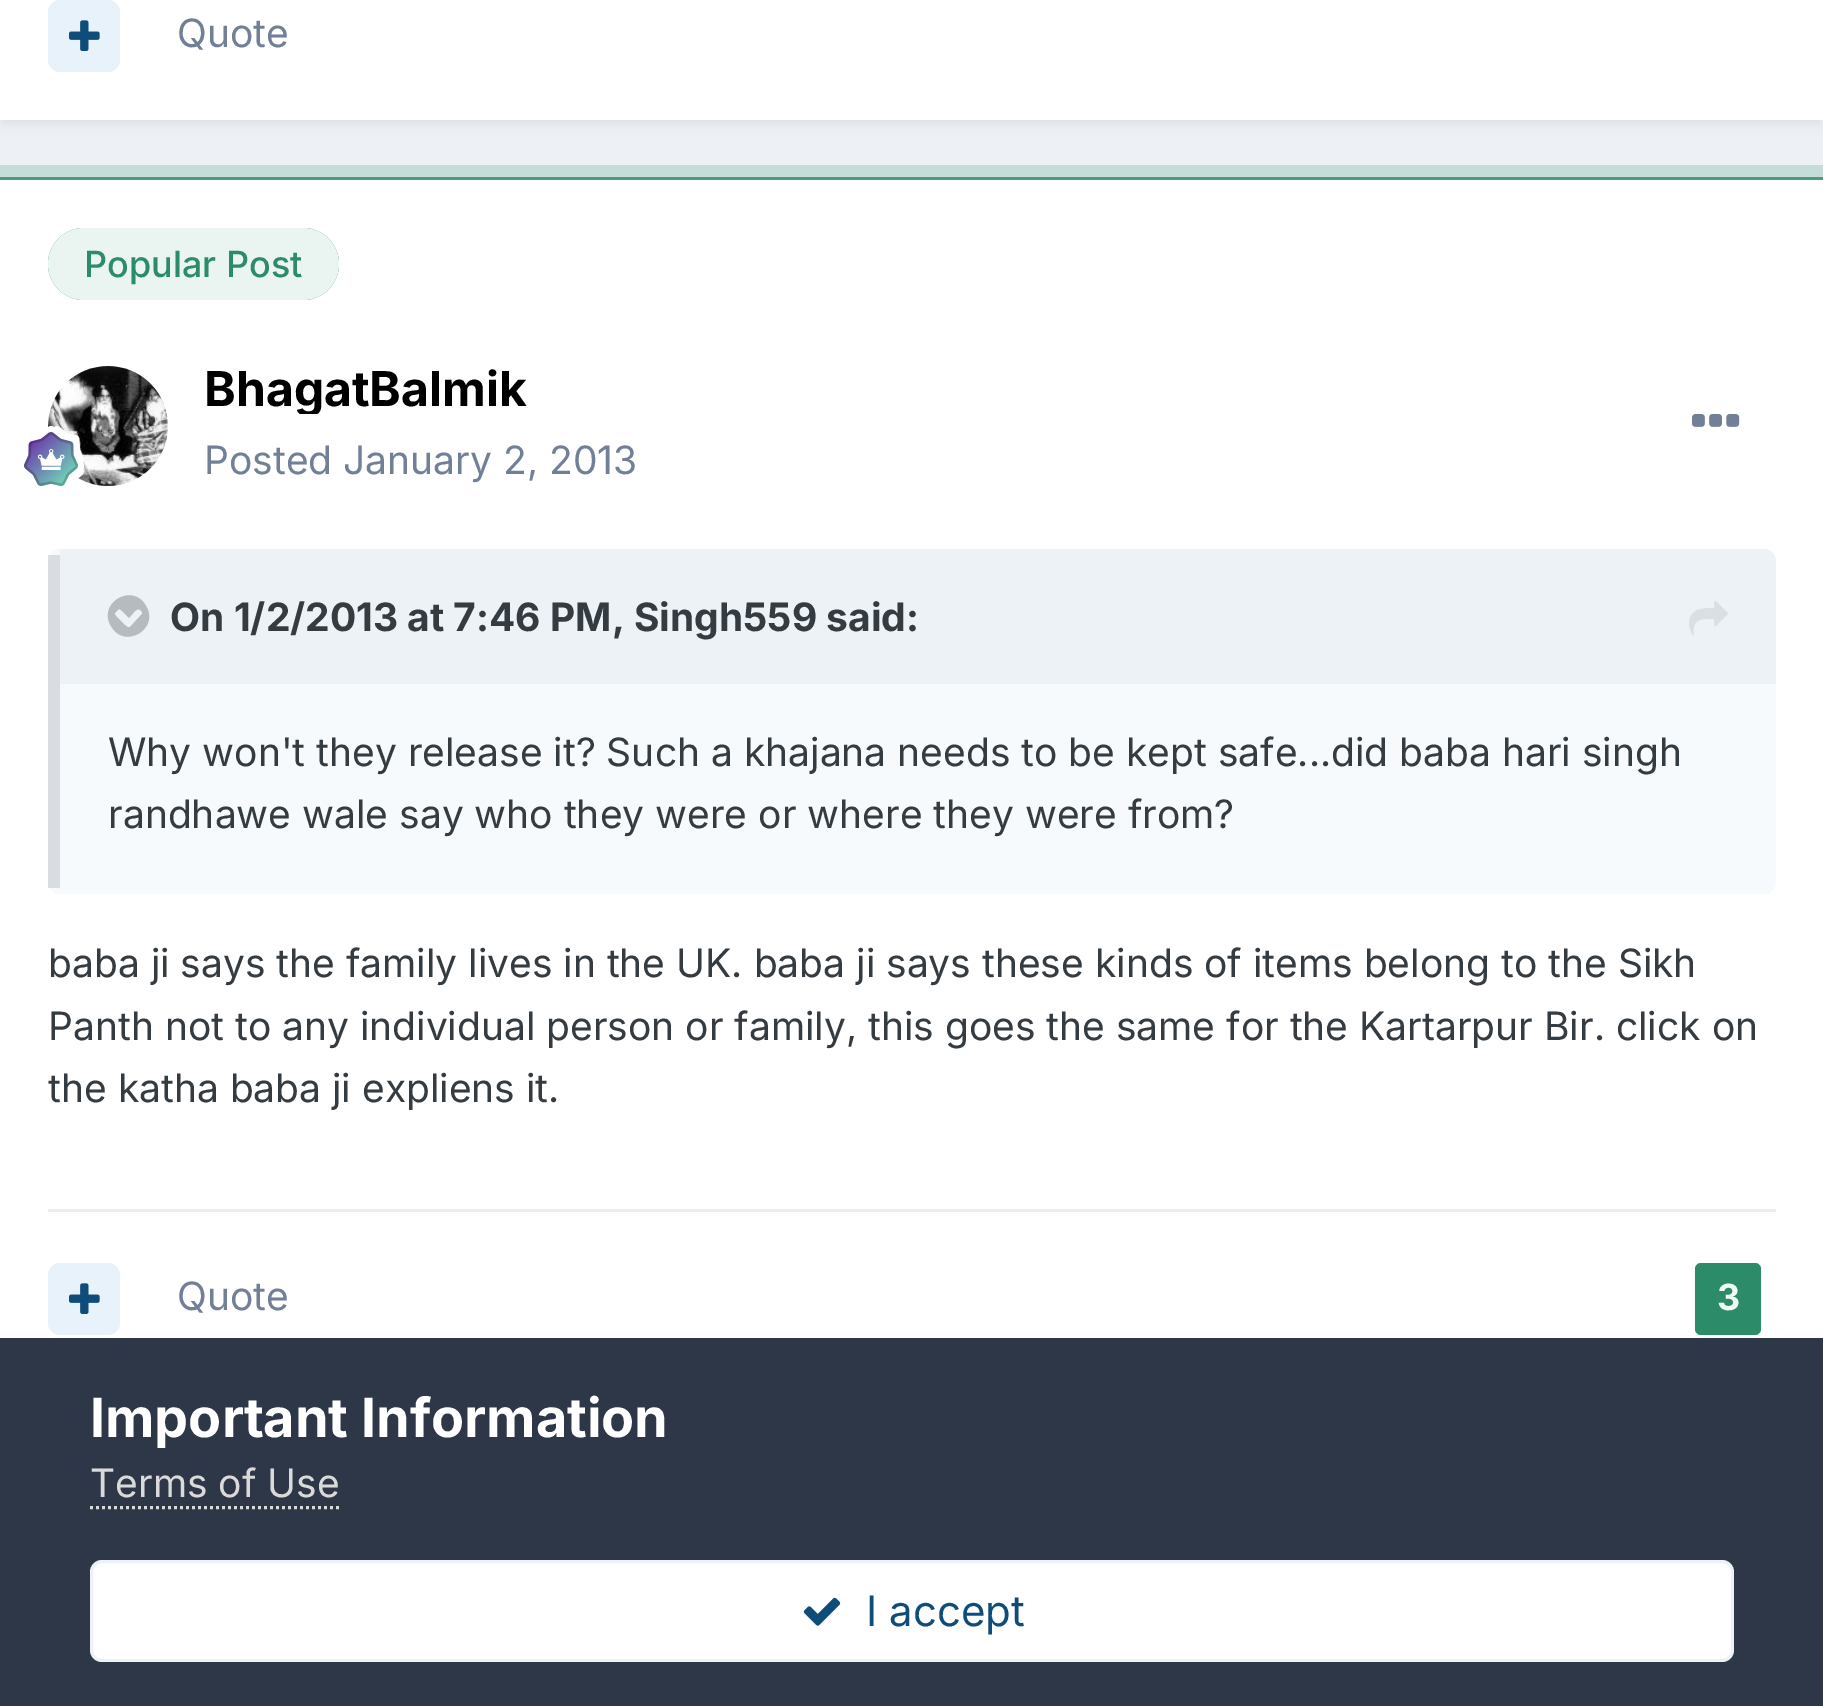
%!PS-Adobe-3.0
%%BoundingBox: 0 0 1823 1706
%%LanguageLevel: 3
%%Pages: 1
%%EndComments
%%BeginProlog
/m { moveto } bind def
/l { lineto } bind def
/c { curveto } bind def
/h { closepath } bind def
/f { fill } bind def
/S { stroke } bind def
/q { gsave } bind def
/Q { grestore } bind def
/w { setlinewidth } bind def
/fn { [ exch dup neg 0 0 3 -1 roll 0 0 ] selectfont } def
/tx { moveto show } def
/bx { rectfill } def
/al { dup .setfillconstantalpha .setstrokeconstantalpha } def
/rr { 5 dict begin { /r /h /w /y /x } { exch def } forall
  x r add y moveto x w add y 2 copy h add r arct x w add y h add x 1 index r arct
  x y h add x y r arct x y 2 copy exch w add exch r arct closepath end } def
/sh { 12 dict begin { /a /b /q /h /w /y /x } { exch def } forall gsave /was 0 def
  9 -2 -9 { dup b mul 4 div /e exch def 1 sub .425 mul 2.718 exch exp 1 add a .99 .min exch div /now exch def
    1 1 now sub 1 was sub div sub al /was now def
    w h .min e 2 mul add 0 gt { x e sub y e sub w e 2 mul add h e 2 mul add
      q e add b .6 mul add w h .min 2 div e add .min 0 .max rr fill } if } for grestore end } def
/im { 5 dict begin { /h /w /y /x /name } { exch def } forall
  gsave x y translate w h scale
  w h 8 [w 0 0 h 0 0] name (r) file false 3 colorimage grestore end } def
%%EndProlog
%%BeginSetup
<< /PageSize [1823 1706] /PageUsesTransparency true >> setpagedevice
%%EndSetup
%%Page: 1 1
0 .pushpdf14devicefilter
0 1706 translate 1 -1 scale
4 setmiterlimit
0.929 0.941 0.957 setrgbcolor
0 0 1823 1706 bx
0.176 0.216 0.282 setrgbcolor
3 -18 1818 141 0 6 0.1 sh
1 setgray
0 0 1823 120 bx
0.91 0.949 0.98 setrgbcolor
48 0 72 72 12 rr f
(image0.raw) 69 20 31 31 im
/Inter-Regular 39 fn
0.443 0.502 0.588 setrgbcolor
(Quote) 177 47 tx
0.776 0.863 0.847 setrgbcolor
15 w
-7.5 172.5 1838 1218 rectstroke
0.294 0.612 0.498 setrgbcolor
3 w
-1.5 178.5 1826 1206 rectstroke
1 setgray
0 180 1823 1158 bx
0.173 0.549 0.412 setrgbcolor
48 228 291 72 36 rr f
0.9 al
1 setgray
48 228 291 72 36 rr f
/Inter-Medium 36 fn
1 al
0.173 0.549 0.412 setrgbcolor
(Popular Post) 84 277 tx
(image1.raw) 48 366 120 120 im
(image2.raw) 24 426 60 60 im
q
204 360 324 54 rectclip
/Inter-Bold 48 fn
0 setgray
(BhagatBalmik) 204 406 tx
Q
/Inter-Regular 39 fn
0.443 0.502 0.588 setrgbcolor
(Posted January 2, 2013) 204 474 tx
(image3.raw) 1692 414 48 13 im
0.969 0.98 0.988 setrgbcolor
48 549 1728 345 12 rr f
0.15 al
0.176 0.216 0.282 setrgbcolor
48 555 12 333 bx
1 al
0.929 0.949 0.969 setrgbcolor
60 549 m 1764 549 l 1770.5 549 1776 554.5 1776 561 c 1776 684 l 60 684 l h f
0.714 0.733 0.753 setrgbcolor
130 627 m 142 614 l 142 612 l 139 609 139 608 135 611 c 129 618 l 127 616 121 609 119 609 c 117 611 l 113 614 115 615 119 619 c 125 625 l 126 626 128 628 130 627 c h 146 606 m 160 629 124 650 111 626 c 97 603 133 582 146 606 c h f
/Inter-Bold 39 fn
0.208 0.235 0.255 setrgbcolor
(On 1/2/2013 at 7:46 PM, Singh559 said:) 170 631 tx
(image4.raw) 1689 601 39 35 im
/Inter-Regular 39 fn
(Why won't they release it? Such a khajana needs to be kept safe...did baba hari singh) 108 766 tx
(randhawe wale say who they were or where they were from?) 108 828 tx
(baba ji says the family lives in the UK. baba ji says these kinds of items belong to the Sikh) 48 977 tx
(Panth not to any individual person or family, this goes the same for the Kartarpur Bir. click on) 48 1040 tx
(the katha baba ji expliens it.) 48 1102 tx
0.922 0.925 0.925 setrgbcolor
48 1209 1728 3 bx
0.91 0.949 0.98 setrgbcolor
48 1263 72 72 12 rr f
(image0.raw) 69 1283 31 31 im
0.443 0.502 0.588 setrgbcolor
(Quote) 177 1310 tx
0.173 0.549 0.412 setrgbcolor
1695 1263 66 72 6 rr f
/Inter-Bold 36 fn
0.941 0.98 0.965 setrgbcolor
(3) 1717 1310 tx
0.176 0.216 0.282 setrgbcolor
0 1338 1823 368 bx
/Inter-Bold 54 fn
1 setgray
(Important Information) 90 1437 tx
/Inter-Regular 39 fn
0.855 setgray
(Terms of Use) 90 1497 tx
[3 3] 0 setdash
90 1507.5 m 339 1507.5 l S
1 setgray
90 1560 1644 102 12 rr f
0.07 al
0.055 0.298 0.475 setrgbcolor
[] 0 setdash
91.5 1561.5 1641 99 10.5 rr S
1 al
(image5.raw) 803 1597 38 29 im
/Inter-Regular 42 fn
(I accept) 866 1626 tx
.poppdf14devicefilter showpage
%%EOF
